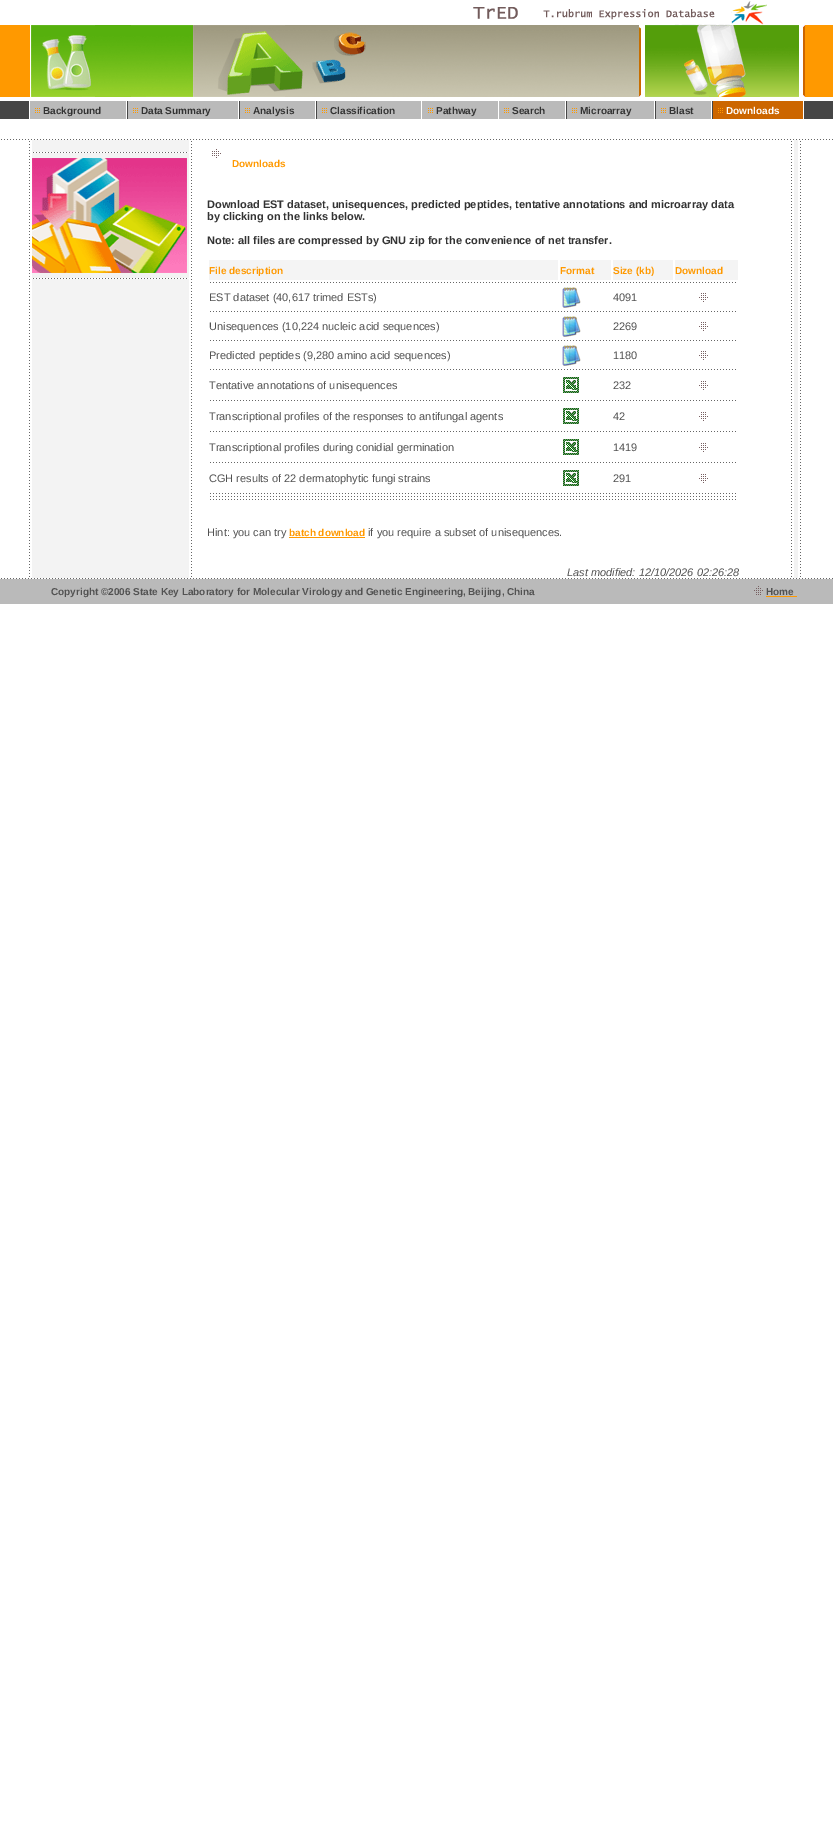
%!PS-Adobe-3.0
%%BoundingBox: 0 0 833 1835
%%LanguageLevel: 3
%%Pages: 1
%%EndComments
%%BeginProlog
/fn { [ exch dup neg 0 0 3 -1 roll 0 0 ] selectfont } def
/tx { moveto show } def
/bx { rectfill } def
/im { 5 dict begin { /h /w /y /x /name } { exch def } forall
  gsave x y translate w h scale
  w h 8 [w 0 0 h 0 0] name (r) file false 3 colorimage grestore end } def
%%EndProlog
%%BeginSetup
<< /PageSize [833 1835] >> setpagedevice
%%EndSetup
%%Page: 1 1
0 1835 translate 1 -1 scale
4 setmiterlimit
1 setgray
0 0 833 1835 bx
(image0.raw) 473 1 294 24 im
1 0.6 0 setrgbcolor
0 25 833 72 bx
1 setgray
30 25 1 72 bx
(image1.raw) 31 25 162 72 im
(image2.raw) 193 25 446 72 im
(image3.raw) 639 25 6 72 im
(image4.raw) 645 25 154 72 im
(image5.raw) 799 25 6 72 im
0.275 setgray
0 101 833 18 bx
1 setgray
29 101 1 18 bx
0.729 setgray
30 101 96 18 bx
(image6.raw) 35 108 5 5 im
/LiberationSans-Bold 10 fn
0.2 setgray
(Background) 43 114 tx
1 setgray
126 101 1 18 bx
0.729 setgray
128 101 110 18 bx
(image6.raw) 133 108 5 5 im
0.2 setgray
(Data Summary) 141 114 tx
1 setgray
238 101 1 18 bx
0.729 setgray
240 101 75 18 bx
(image6.raw) 245 108 5 5 im
0.2 setgray
(Analysis) 253 114 tx
1 setgray
315 101 1 18 bx
0.729 setgray
317 101 104 18 bx
(image6.raw) 322 108 5 5 im
0.2 setgray
(Classification) 330 114 tx
1 setgray
421 101 1 18 bx
0.729 setgray
422 101 76 18 bx
(image6.raw) 428 108 5 5 im
0.2 setgray
(Pathway) 436 114 tx
1 setgray
498 101 1 18 bx
0.729 setgray
499 101 66 18 bx
(image6.raw) 504 108 5 5 im
0.2 setgray
(Search) 512 114 tx
1 setgray
565 101 1 18 bx
0.729 setgray
567 101 87 18 bx
(image6.raw) 572 108 5 5 im
0.2 setgray
(Microarray) 580 114 tx
1 setgray
654 101 1 18 bx
0.729 setgray
656 101 55 18 bx
(image6.raw) 661 108 5 5 im
0.2 setgray
(Blast) 669 114 tx
1 setgray
711 101 1 18 bx
0.8 0.4 0 setrgbcolor
713 101 90 18 bx
(image7.raw) 718 108 5 5 im
1 setgray
(Downloads) 726 114 tx
803 101 1 18 bx
(image8.raw) 0 139 833 1 im
(image9.raw) 29 140 1 438 im
0.953 setgray
32 140 157 438 bx
(image10.raw) 32 152 157 1 im
(image11.raw) 32 158 155 115 im
(image10.raw) 32 278 157 1 im
(image9.raw) 191 140 1 438 im
(image12.raw) 212 149 9 9 im
1 0.6 0 setrgbcolor
(Downloads) 232 167 tx
/LiberationSans-Bold 11 fn
0.2 setgray
(Download EST dataset, unisequences, predicted peptides, tentative annotations and microarray data) 207 208 tx
(by clicking on the links below.) 207 220 tx
(Note: all files are compressed by GNU zip for the convenience of net transfer.) 207 244 tx
0.957 setgray
209 260 349 20 bx
/LiberationSans-Bold 10 fn
1 0.6 0 setrgbcolor
(File description) 209 274 tx
0.957 setgray
560 260 51 20 bx
1 0.6 0 setrgbcolor
(Format) 560 274 tx
0.957 setgray
613 260 60 20 bx
1 0.6 0 setrgbcolor
(Size \(kb\)) 613 274 tx
0.957 setgray
675 260 63 20 bx
1 0.6 0 setrgbcolor
(Download) 675 274 tx
(image13.raw) 209 282 529 1 im
/LiberationSans-Regular 11 fn
0.322 setgray
(EST dataset \(40,617 trimed ESTs\)) 209 301 tx
(image14.raw) 562 287 19 21 im
(4091) 613 301 tx
(image15.raw) 699 293 9 9 im
(image13.raw) 209 311 529 1 im
(Unisequences \(10,224 nucleic acid sequences\)) 209 330 tx
(image14.raw) 562 316 19 21 im
(2269) 613 330 tx
(image15.raw) 699 322 9 9 im
(image13.raw) 209 340 529 1 im
(Predicted peptides \(9,280 amino acid sequences\)) 209 359 tx
(image14.raw) 562 345 19 21 im
(1180) 613 359 tx
(image15.raw) 699 351 9 9 im
(image13.raw) 209 369 529 1 im
(Tentative annotations of unisequences) 209 389 tx
(image16.raw) 563 377 16 16 im
(232) 613 389 tx
(image15.raw) 699 381 9 9 im
(image13.raw) 209 400 529 1 im
(Transcriptional profiles of the responses to antifungal agents) 209 420 tx
(image16.raw) 563 408 16 16 im
(42) 613 420 tx
(image15.raw) 699 412 9 9 im
(image13.raw) 209 431 529 1 im
(Transcriptional profiles during conidial germination) 209 451 tx
(image16.raw) 563 439 16 16 im
(1419) 613 451 tx
(image15.raw) 699 443 9 9 im
(image13.raw) 209 462 529 1 im
(CGH results of 22 dermatophytic fungi strains) 209 482 tx
(image16.raw) 563 470 16 16 im
(291) 613 482 tx
(image15.raw) 699 474 9 9 im
(image13.raw) 209 493 529 1 im
(image13.raw) 209 496 529 1 im
(image13.raw) 209 499 529 1 im
(Hint: you can try) 207 536 tx
/LiberationSans-Bold 10 fn
1 0.6 0 setrgbcolor
(batch download) 289 536 tx
289 537 76 1 bx
/LiberationSans-Regular 11 fn
0.322 setgray
(if you require a subset of unisequences.) 368 536 tx
/LiberationSans-Italic 11 fn
(Last modified: 12/10/2026 02:26:28) 567 576 tx
(image9.raw) 791 140 1 438 im
0.953 setgray
794 140 4 438 bx
(image9.raw) 800 140 1 438 im
0.729 setgray
0 579 833 25 bx
(image8.raw) 0 578 833 1 im
/LiberationSans-Bold 10 fn
0.322 setgray
(Copyright ©2006 State Key Laboratory for Molecular Virology and Genetic Engineering, Beijing, China) 51 595 tx
(image17.raw) 754 586 9 9 im
(Home) 766 595 tx
1 0.6 0 setrgbcolor
766 596 31 1 bx
showpage
%%EOF
